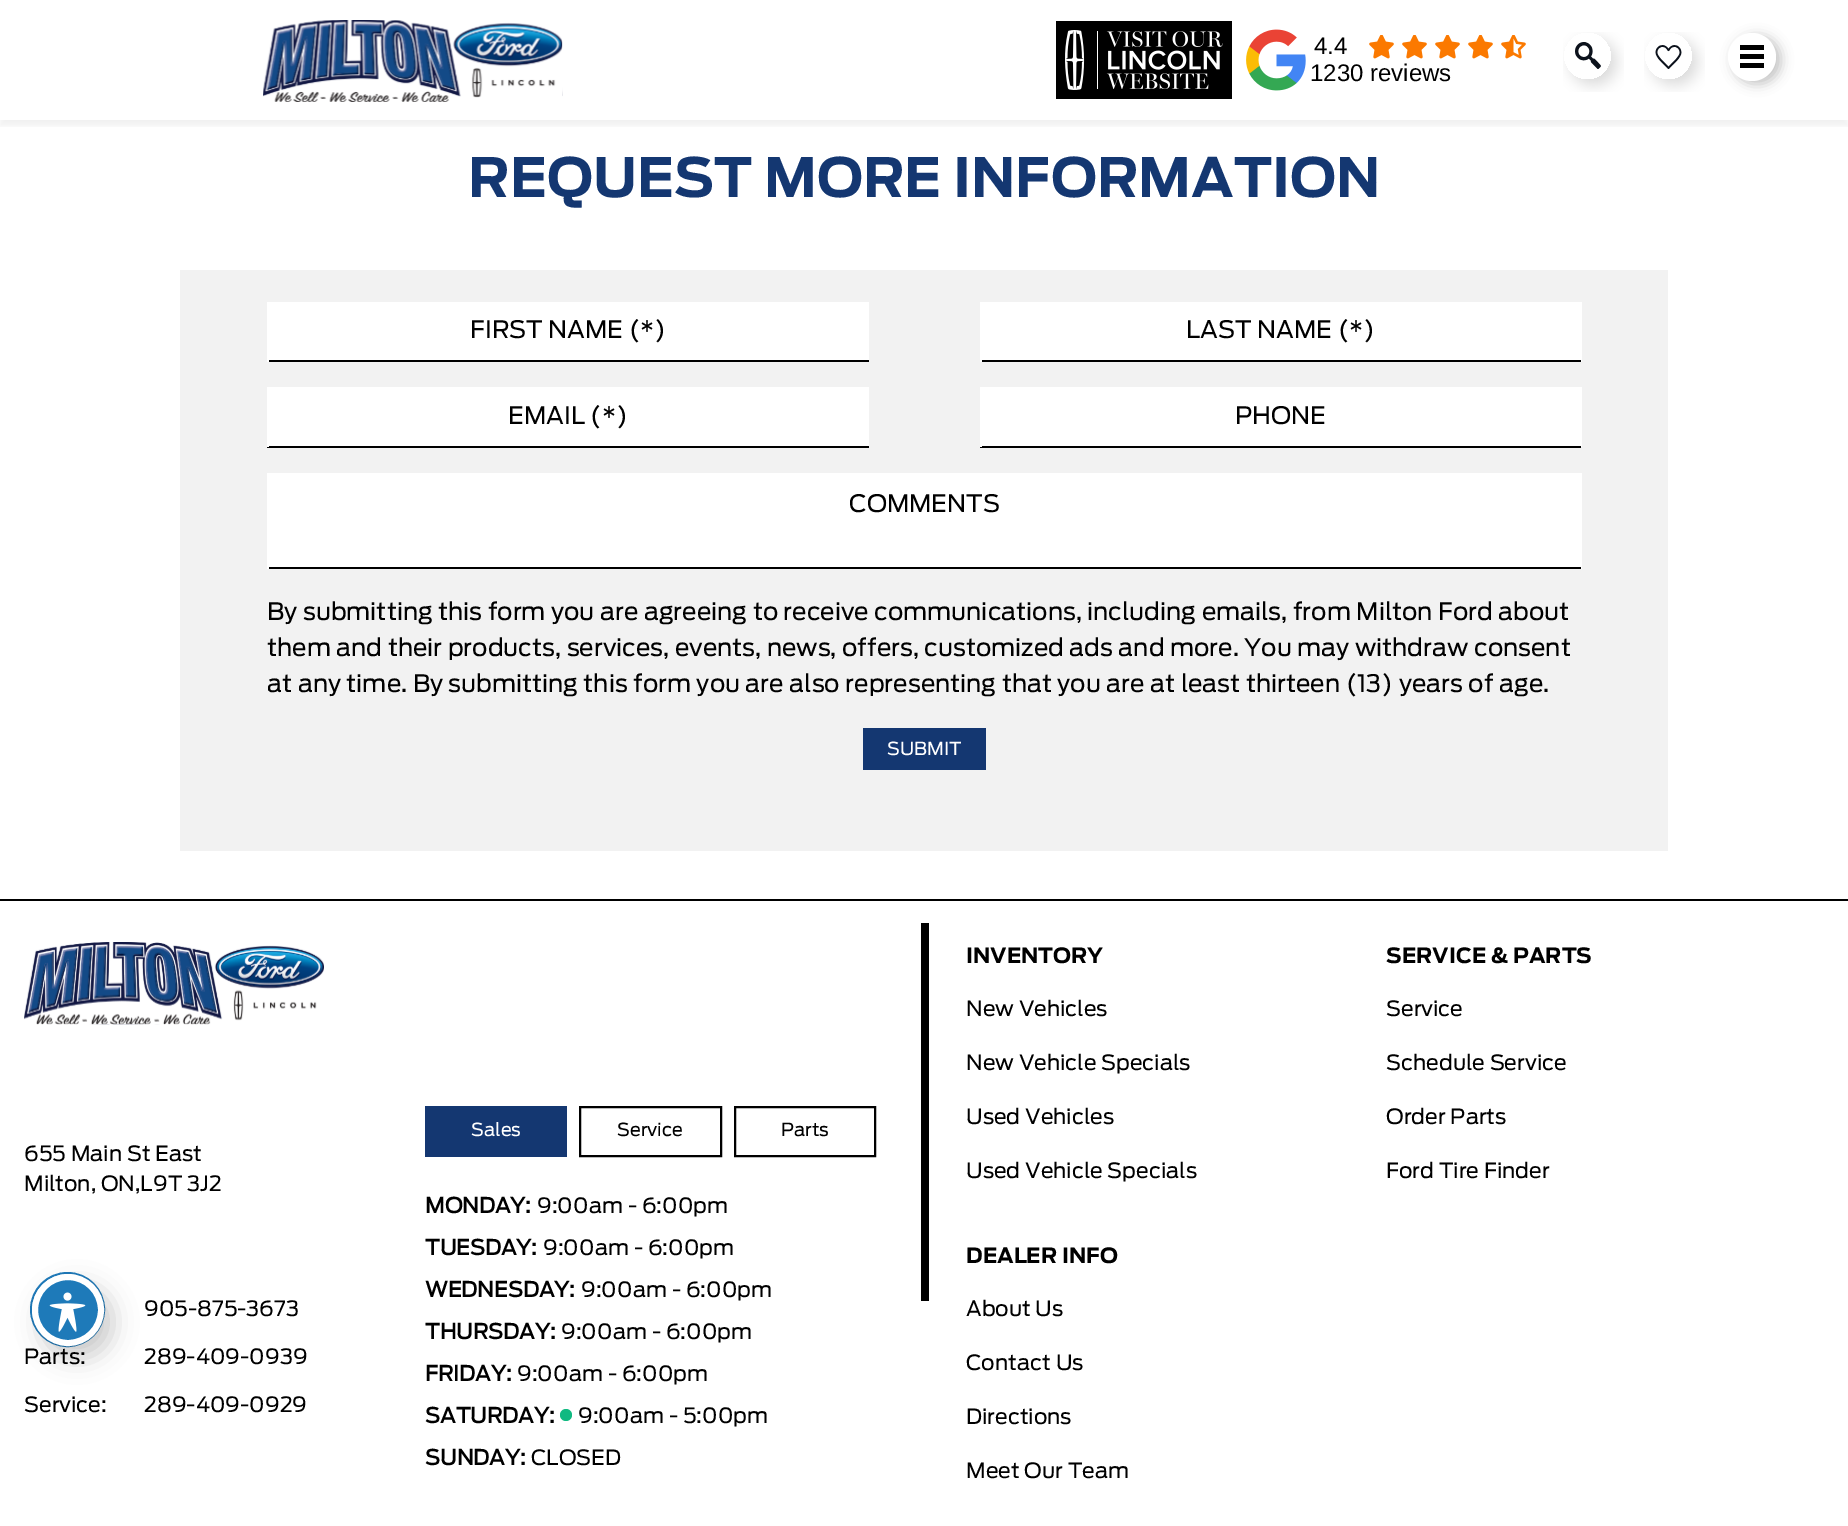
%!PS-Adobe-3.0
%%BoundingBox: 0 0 1848 1526
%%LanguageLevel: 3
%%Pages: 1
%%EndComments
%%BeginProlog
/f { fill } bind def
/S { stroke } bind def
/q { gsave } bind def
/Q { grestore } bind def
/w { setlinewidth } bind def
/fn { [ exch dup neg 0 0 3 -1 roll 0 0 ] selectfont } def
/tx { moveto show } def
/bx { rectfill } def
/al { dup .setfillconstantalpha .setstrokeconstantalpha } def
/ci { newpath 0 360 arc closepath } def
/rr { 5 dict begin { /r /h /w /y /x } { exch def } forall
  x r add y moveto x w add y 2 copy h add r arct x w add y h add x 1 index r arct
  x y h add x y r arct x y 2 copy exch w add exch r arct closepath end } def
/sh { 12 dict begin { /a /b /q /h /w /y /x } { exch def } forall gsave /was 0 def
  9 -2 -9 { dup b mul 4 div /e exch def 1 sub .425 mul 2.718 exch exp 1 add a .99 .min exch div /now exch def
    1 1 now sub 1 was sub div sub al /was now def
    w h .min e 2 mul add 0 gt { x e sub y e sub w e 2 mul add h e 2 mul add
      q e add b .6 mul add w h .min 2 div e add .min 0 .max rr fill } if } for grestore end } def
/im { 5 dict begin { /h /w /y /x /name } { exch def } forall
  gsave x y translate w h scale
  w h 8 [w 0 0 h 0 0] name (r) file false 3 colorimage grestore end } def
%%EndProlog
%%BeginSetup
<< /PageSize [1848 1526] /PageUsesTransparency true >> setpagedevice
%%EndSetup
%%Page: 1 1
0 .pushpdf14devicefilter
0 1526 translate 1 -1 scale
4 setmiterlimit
1 setgray
0 0 1848 1526 bx
q
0 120 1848 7 rectclip
0 setgray
0 6 1848 120 0 3 0.05 sh
Q
(image0.raw) 263 20 300 82 im
0 setgray
1056 21 176 78 bx
(image1.raw) 1065 30 158 60 im
(image2.raw) 1246 29 60 62 im
/LiberationSans-Regular 24 fn
(4.4) 1314 54 tx
(image3.raw) 1369 35 25 24 im
(image3.raw) 1402 35 25 24 im
(image3.raw) 1435 35 25 24 im
(image3.raw) 1468 35 25 24 im
(image4.raw) 1501 35 25 24 im
(1230 reviews) 1310 81 tx
(image5.raw) 1563 32 61 60 im
(image6.raw) 1644 32 61 60 im
0.765 setgray
1733 36 48 48 24 6 1 sh
1 setgray
1752 57 24 ci f
0 setgray
1740 45 24 5 bx
1740 54 24 5 bx
1740 63 24 5 bx
/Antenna-Bold 54 fn
0.078 0.216 0.443 setrgbcolor
(REQUEST MORE INFORMATION) 468 197 tx
0.949 setgray
180 270 1488 581 bx
1 setgray
269 302 600 58 bx
0 setgray
267 360 602 2 bx
1 setgray
267 302 2 60 bx
/Antenna-Regular 24 fn
0 setgray
(FIRST NAME \(*\)) 470 338 tx
1 setgray
982 302 598 58 bx
1580 302 2 60 bx
0 setgray
980 360 601 2 bx
1 setgray
980 302 2 60 bx
0 setgray
(LAST NAME \(*\)) 1186 338 tx
1 setgray
269 387 600 59 bx
0 setgray
267 446 602 2 bx
1 setgray
267 387 2 60 bx
0 setgray
(EMAIL \(*\)) 508 424 tx
1 setgray
982 387 598 59 bx
1580 387 2 60 bx
0 setgray
980 446 601 2 bx
1 setgray
980 387 2 60 bx
0 setgray
(PHONE) 1235 424 tx
1 setgray
269 473 1311 94 bx
1580 473 2 96 bx
0 setgray
267 567 1314 2 bx
1 setgray
267 473 2 96 bx
0 setgray
(COMMENTS) 849 512 tx
(By submitting this form you are agreeing to receive communications, including emails, from Milton Ford about) 267 620 tx
(them and their products, services, events, news, offers, customized ads and more. You may withdraw consent) 267 656 tx
(at any time. By submitting this form you are also representing that you are at least thirteen \(13\) years of age.) 267 692 tx
0.078 0.216 0.443 setrgbcolor
863 728 123 42 bx
/Antenna-Regular 18 fn
1 setgray
(SUBMIT) 887 755 tx
0 setgray
0 899 1848 2 bx
(image7.raw) 24 942 300 83 im
921 923 8 378 bx
/Antenna-Regular 21 fn
(655 Main St East) 24 1161 tx
(Milton, ON,L9T 3J2) 24 1191 tx
(905-875-3673) 144 1316 tx
(Parts:) 24 1364 tx
(289-409-0939) 144 1364 tx
(Service:) 24 1412 tx
(289-409-0929) 144 1412 tx
0.078 0.216 0.443 setrgbcolor
425 1106 142 51 bx
/Antenna-Regular 18 fn
1 setgray
(Sales) 471 1136 tx
0 setgray
2 w
580 1107 141 49 rectstroke
(Service) 617 1136 tx
735 1107 140 49 rectstroke
(Parts) 781 1136 tx
/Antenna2-Bold 21 fn
(MONDAY:) 425 1213 tx
/Antenna-Regular 21 fn
(9:00am - 6:00pm) 537 1213 tx
/Antenna2-Bold 21 fn
(TUESDAY:) 425 1255 tx
/Antenna-Regular 21 fn
(9:00am - 6:00pm) 543 1255 tx
/Antenna2-Bold 21 fn
(WEDNESDAY:) 425 1297 tx
/Antenna-Regular 21 fn
(9:00am - 6:00pm) 581 1297 tx
/Antenna2-Bold 21 fn
(THURSDAY:) 425 1339 tx
/Antenna-Regular 21 fn
(9:00am - 6:00pm) 561 1339 tx
/Antenna2-Bold 21 fn
(FRIDAY:) 425 1381 tx
/Antenna-Regular 21 fn
(9:00am - 6:00pm) 517 1381 tx
/Antenna2-Bold 21 fn
(SATURDAY:) 425 1423 tx
0.063 0.725 0.506 setrgbcolor
566 1415 6 ci f
/Antenna-Regular 21 fn
0 setgray
(9:00am - 5:00pm) 578 1423 tx
/Antenna2-Bold 21 fn
(SUNDAY:) 425 1465 tx
/Antenna-Regular 21 fn
(CLOSED) 531 1465 tx
/Antenna-Bold 21 fn
(INVENTORY) 966 963 tx
/Antenna-Regular 21 fn
(New Vehicles) 966 1016 tx
(New Vehicle Specials) 966 1070 tx
(Used Vehicles) 966 1124 tx
(Used Vehicle Specials) 966 1178 tx
/Antenna-Bold 21 fn
(SERVICE & PARTS) 1386 963 tx
/Antenna-Regular 21 fn
(Service) 1386 1016 tx
(Schedule Service) 1386 1070 tx
(Order Parts) 1386 1124 tx
(Ford Tire Finder) 1386 1178 tx
/Antenna-Bold 21 fn
(DEALER INFO) 966 1263 tx
/Antenna-Regular 21 fn
(About Us) 966 1316 tx
(Contact Us) 966 1370 tx
(Directions) 966 1424 tx
(Meet Our Team) 966 1478 tx
0.118 0.478 0.725 setrgbcolor
67.5 1309.5 36.5 ci S
0 setgray
41 1286 72 72 36 12 0.2 sh
0.118 0.478 0.725 setrgbcolor
68 1310 33 ci q f Q
1 setgray
6 w
S
(image8.raw) 49 1292 37 40 im
.poppdf14devicefilter showpage
%%EOF
